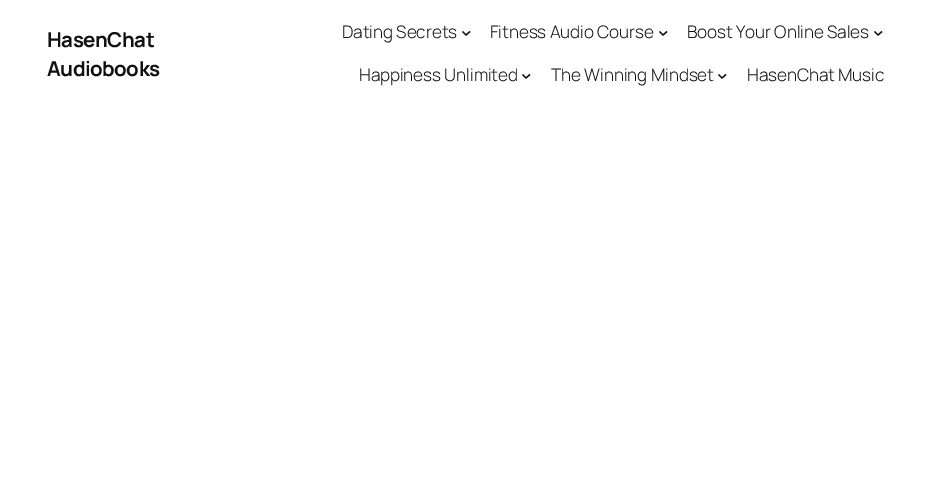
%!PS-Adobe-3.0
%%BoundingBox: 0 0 930 484
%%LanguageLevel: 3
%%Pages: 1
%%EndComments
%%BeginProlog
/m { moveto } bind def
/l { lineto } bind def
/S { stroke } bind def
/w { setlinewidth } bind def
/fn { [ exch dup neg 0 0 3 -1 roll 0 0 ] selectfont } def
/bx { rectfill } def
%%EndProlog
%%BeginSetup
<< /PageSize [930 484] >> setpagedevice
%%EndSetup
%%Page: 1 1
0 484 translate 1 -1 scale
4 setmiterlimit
1 setgray
0 0 930 484 bx
/Manrope-Bold 20.5 fn
0.067 setgray
47 47 m -0.5 0 (HasenChat) ashow
47 76 m -0.5 0 (Audiobooks) ashow
/Manrope-Light 17.25 fn
342 38 m -0.1 0 (Dating Secrets) ashow
1.3 w
462.5 31.5 m 466 35 l 470 31.5 l S
490 38 m -0.1 0 (Fitness Audio Course) ashow
659.5 31.5 m 663 35 l 667 31.5 l S
687 38 m -0.1 0 (Boost Your Online Sales) ashow
874.5 31.5 m 878 35 l 882 31.5 l S
359 81 m -0.1 0 (Happiness Unlimited) ashow
522.5 74.5 m 526 78 l 530 74.5 l S
551 81 m -0.1 0 (The Winning Mindset) ashow
718.5 74.5 m 722 78 l 726 74.5 l S
747 81 m -0.1 0 (HasenChat Music) ashow
showpage
%%EOF
